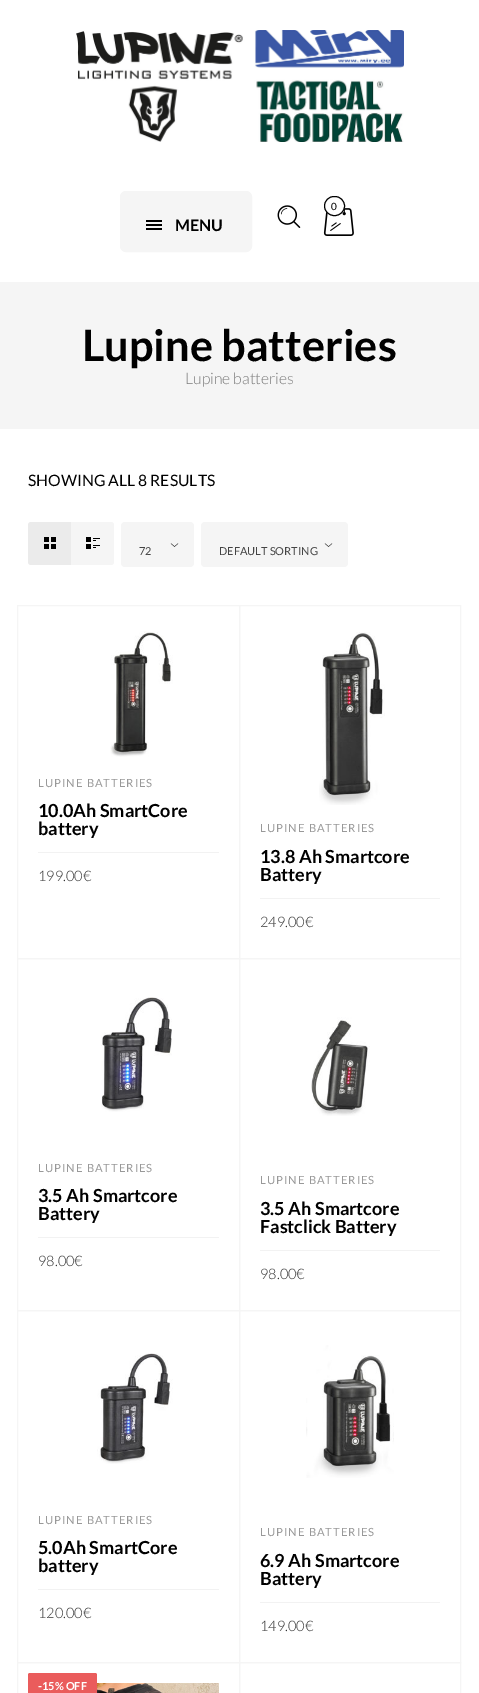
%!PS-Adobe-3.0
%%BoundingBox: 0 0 479 1693
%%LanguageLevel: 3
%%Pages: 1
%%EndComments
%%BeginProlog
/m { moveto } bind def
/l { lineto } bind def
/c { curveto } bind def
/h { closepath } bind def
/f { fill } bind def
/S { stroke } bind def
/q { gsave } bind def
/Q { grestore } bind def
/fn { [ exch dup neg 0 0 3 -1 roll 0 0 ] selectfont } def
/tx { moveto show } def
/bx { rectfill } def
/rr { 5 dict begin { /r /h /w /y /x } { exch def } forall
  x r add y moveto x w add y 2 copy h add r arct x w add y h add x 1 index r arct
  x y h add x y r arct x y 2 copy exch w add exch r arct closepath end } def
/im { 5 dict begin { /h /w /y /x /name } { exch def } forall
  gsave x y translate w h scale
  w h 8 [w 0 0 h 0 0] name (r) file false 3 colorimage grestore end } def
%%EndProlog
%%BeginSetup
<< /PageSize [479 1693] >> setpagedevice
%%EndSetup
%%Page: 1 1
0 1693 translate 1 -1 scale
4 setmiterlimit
1 setgray
0 0 479 1693 bx
(image0.raw) 76 30 328 112 im
0.961 setgray
120.5 191.5 131 60 5.5 rr q f Q
S
(image1.raw) 146 220 16 10 im
/Lato-Bold 16 fn
0 setgray
(MENU) 175 231 tx
(image2.raw) 277 205 24 23 im
(image3.raw) 323 202 31 34 im
1 setgray
324.5 196.5 20 19 9.5 rr q f Q
0 setgray
S
/Lato-Regular 10 fn
(0) 331 210 tx
0.961 setgray
0 282 479 147 bx
/Lato-Bold 43.25 fn
0 setgray
(Lupine batteries) 82 361 tx
/Lato-Light 15.75 fn
0.482 setgray
(Lupine batteries) 185 384 tx
/Lato-Regular 15.75 fn
0 setgray
(SHOWING ALL 8 RESULTS) 28 486 tx
0.922 setgray
31 522 m 71 522 l 71 565 l 31 565 l 29.5 565 28 563.5 28 562 c 28 525 l 28 523.5 29.5 522 31 522 c h f
(image4.raw) 44 537 12 12 im
0.961 setgray
71 522 m 111 522 l 112.5 522 114 523.5 114 525 c 114 562 l 114 563.5 112.5 565 111 565 c 71 565 l h f
(image5.raw) 86 537 14 12 im
121 522 73 45 4 rr f
(image6.raw) 170 543 9 4 im
/Lato-Regular 11 fn
0.267 setgray
(72) 139 555 tx
0.961 setgray
201 522 147 45 4 rr f
(image6.raw) 324 543 9 4 im
0.267 setgray
(DEFAULT SORTING) 219 555 tx
0.961 setgray
17.5 605.5 222 353 rectstroke
(image7.raw) 110 631 63 126 im
/Lato-Regular 11.25 fn
0.6 setgray
38 787 m 1 0 (LUPINE BATTERIES) ashow
/Lato-Bold 18 fn
0 setgray
(10.0Ah SmartCore) 38 817 tx
(battery) 38 835 tx
0.949 setgray
38 852 181 1 bx
/Lato-Light 14.5 fn
0.2 setgray
(199.00€) 38 881 tx
0.961 setgray
239.5 605.5 221 353 rectstroke
(image8.raw) 319 632 66 173 im
/Lato-Regular 11.25 fn
0.6 setgray
260 832 m 1 0 (LUPINE BATTERIES) ashow
/Lato-Bold 18 fn
0 setgray
(13.8 Ah Smartcore) 260 863 tx
(Battery) 260 881 tx
0.949 setgray
260 898 180 1 bx
/Lato-Light 14.5 fn
0.2 setgray
(249.00€) 260 927 tx
0.961 setgray
17.5 958.5 222 352 rectstroke
(image9.raw) 101 997 71 115 im
/Lato-Regular 11.25 fn
0.6 setgray
38 1172 m 1 0 (LUPINE BATTERIES) ashow
/Lato-Bold 18 fn
0 setgray
(3.5 Ah Smartcore) 38 1202 tx
(Battery) 38 1220 tx
0.949 setgray
38 1237 181 1 bx
/Lato-Light 14.5 fn
0.2 setgray
(98.00€) 38 1266 tx
0.961 setgray
239.5 958.5 221 352 rectstroke
(image10.raw) 311 1017 59 99 im
/Lato-Regular 11.25 fn
0.6 setgray
260 1184 m 1 0 (LUPINE BATTERIES) ashow
/Lato-Bold 18 fn
0 setgray
(3.5 Ah Smartcore) 260 1215 tx
(Fastclick Battery) 260 1233 tx
0.949 setgray
260 1250 180 1 bx
/Lato-Light 14.5 fn
0.2 setgray
(98.00€) 260 1279 tx
0.961 setgray
17.5 1310.5 222 352 rectstroke
(image11.raw) 97 1353 76 111 im
/Lato-Regular 11.25 fn
0.6 setgray
38 1524 m 1 0 (LUPINE BATTERIES) ashow
/Lato-Bold 18 fn
0 setgray
(5.0Ah SmartCore) 38 1554 tx
(battery) 38 1572 tx
0.949 setgray
38 1589 181 1 bx
/Lato-Light 14.5 fn
0.2 setgray
(120.00€) 38 1618 tx
0.961 setgray
239.5 1310.5 221 352 rectstroke
(image12.raw) 306 1345 88 133 im
/Lato-Regular 11.25 fn
0.6 setgray
260 1536 m 1 0 (LUPINE BATTERIES) ashow
/Lato-Bold 18 fn
0 setgray
(6.9 Ah Smartcore) 260 1567 tx
(Battery) 260 1585 tx
0.949 setgray
260 1602 180 1 bx
/Lato-Light 14.5 fn
0.2 setgray
(149.00€) 260 1631 tx
0.961 setgray
17.5 1662.5 222 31 rectstroke
0.918 0.361 0.361 setrgbcolor
28 1673 69 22 2 rr f
/Lato-Bold 11 fn
1 setgray
(-15% OFF) 38 1690 tx
(image13.raw) 97 1683 122 10 im
0.961 setgray
239.5 1662.5 221 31 rectstroke
showpage
%%EOF
